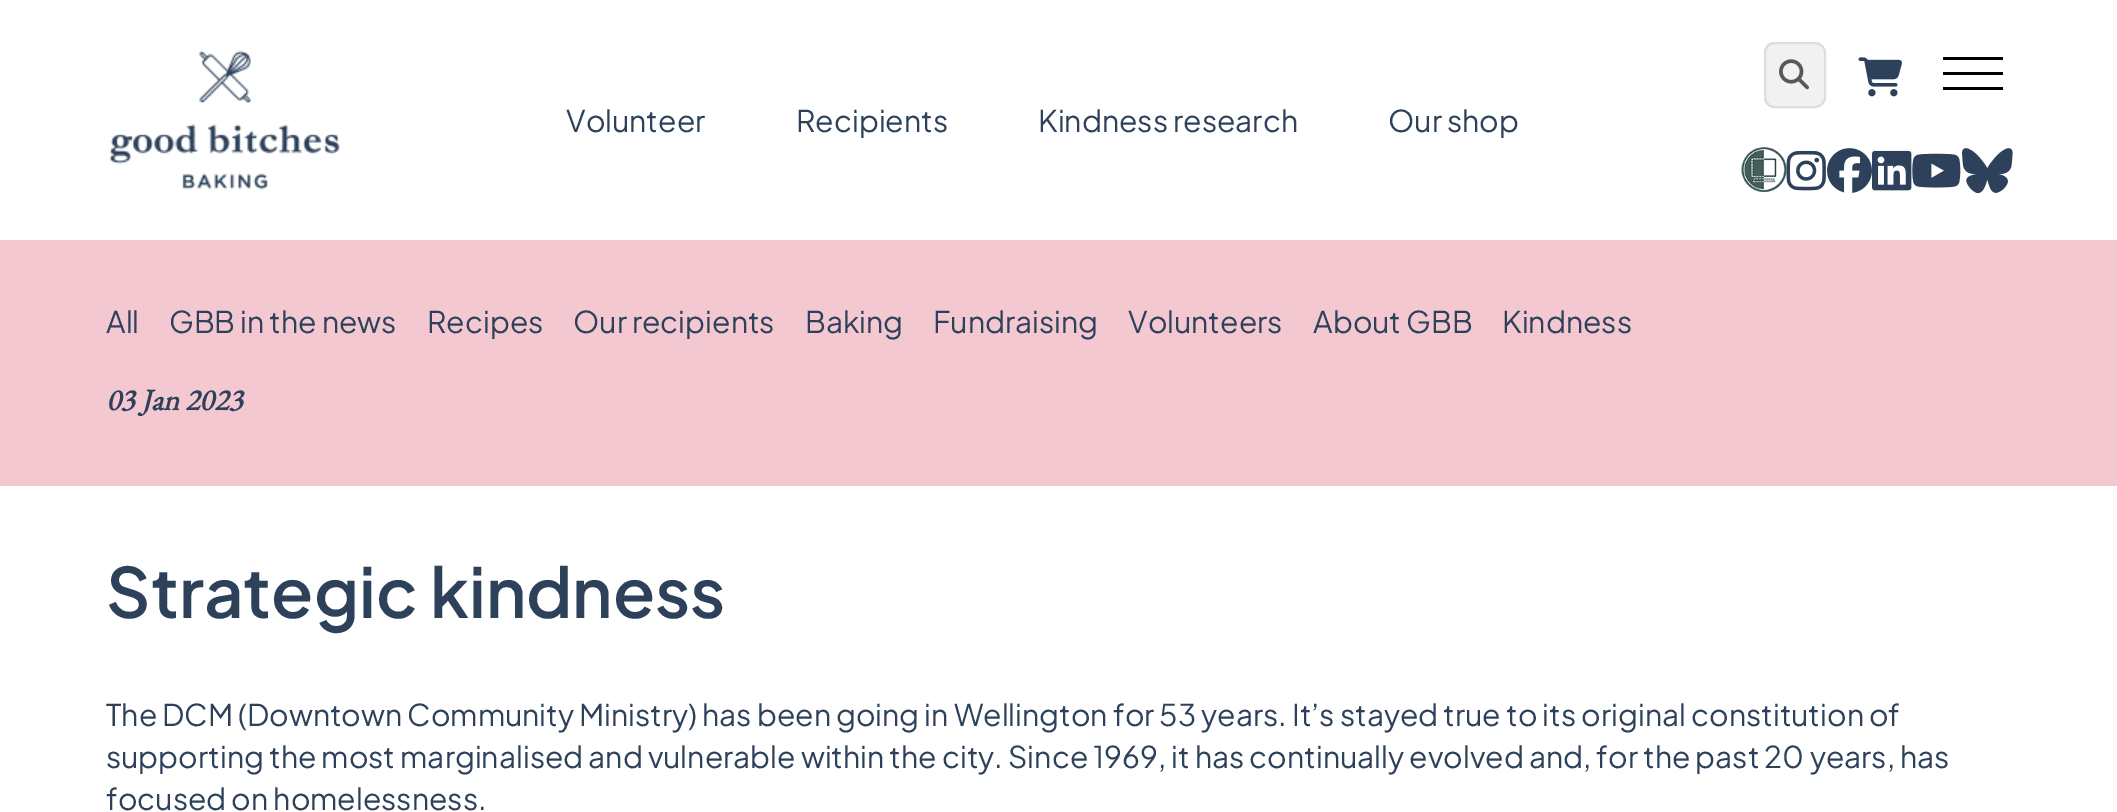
%!PS-Adobe-3.0
%%BoundingBox: 0 0 2117 812
%%LanguageLevel: 3
%%Pages: 1
%%EndComments
%%BeginProlog
/m { moveto } bind def
/l { lineto } bind def
/c { curveto } bind def
/h { closepath } bind def
/f { fill } bind def
/S { stroke } bind def
/w { setlinewidth } bind def
/fn { [ exch dup neg 0 0 3 -1 roll 0 0 ] selectfont } def
/tx { moveto show } def
/bx { rectfill } def
/al { dup .setfillconstantalpha .setstrokeconstantalpha } def
/rr { 5 dict begin { /r /h /w /y /x } { exch def } forall
  x r add y moveto x w add y 2 copy h add r arct x w add y h add x 1 index r arct
  x y h add x y r arct x y 2 copy exch w add exch r arct closepath end } def
/im { 5 dict begin { /h /w /y /x /name } { exch def } forall
  gsave x y translate w h scale
  w h 8 [w 0 0 h 0 0] name (r) file false 3 colorimage grestore end } def
%%EndProlog
%%BeginSetup
<< /PageSize [2117 812] /PageUsesTransparency true >> setpagedevice
%%EndSetup
%%Page: 1 1
0 .pushpdf14devicefilter
0 812 translate 1 -1 scale
4 setmiterlimit
1 setgray
0 0 2117 812 bx
(image0.raw) 109 50 231 140 im
/PlusJakartaSans-Regular 30 fn
0.176 0.255 0.353 setrgbcolor
(Volunteer) 566 132 tx
(Recipients) 796 132 tx
(Kindness research) 1038 132 tx
(Our shop) 1388 132 tx
0.867 setgray
1774 42 m 1786 42 l 1786 108 l 1774 108 l 1769 108 1764 103 1764 98 c 1764 52 l 1764 47 1769 42 1774 42 c h 1774 44 m 1786 44 l 1786 106 l 1774 106 l 1770 106 1766 102 1766 98 c 1766 52 l 1766 48 1770 44 1774 44 c h eofill
(image1.raw) 1779 59 30 31 im
0.4 al
1765 43 60 64 10 rr f
1 al
2 w
1765 43 60 64 10 rr S
(image2.raw) 1858 57 44 40 im
0 setgray
1943 72 60 3 bx
1943 57 60 3 bx
1943 87 60 3 bx
(image3.raw) 1741 147 46 45 im
(image4.raw) 1786 150 40 41 im
(image5.raw) 1827 148 45 45 im
(image6.raw) 1872 150 40 41 im
(image7.raw) 1912 153 49 35 im
(image8.raw) 1962 148 51 46 im
0.953 0.784 0.82 setrgbcolor
0 240 2117 246 bx
0.176 0.255 0.353 setrgbcolor
(All) 106 333 tx
(GBB in the news) 169 333 tx
(Recipes) 427 333 tx
(Our recipients) 573 333 tx
(Baking) 805 333 tx
(Fundraising) 933 333 tx
(Volunteers) 1128 333 tx
(About GBB) 1313 333 tx
(Kindness) 1502 333 tx
/EBGaramond-BoldItalic 30 fn
(03 Jan 2023) 106 410 tx
/PlusJakartaSans-SemiBold 69 fn
(Strategic kindness) 106 618 tx
/PlusJakartaSans-Regular 30 fn
(The DCM \(Downtown Community Ministry\) has been going in Wellington for 53 years. It’s stayed true to its original constitution of) 106 726 tx
(supporting the most marginalised and vulnerable within the city. Since 1969, it has continually evolved and, for the past 20 years, has) 106 768 tx
(focused on homelessness.) 106 810 tx
.poppdf14devicefilter showpage
%%EOF
